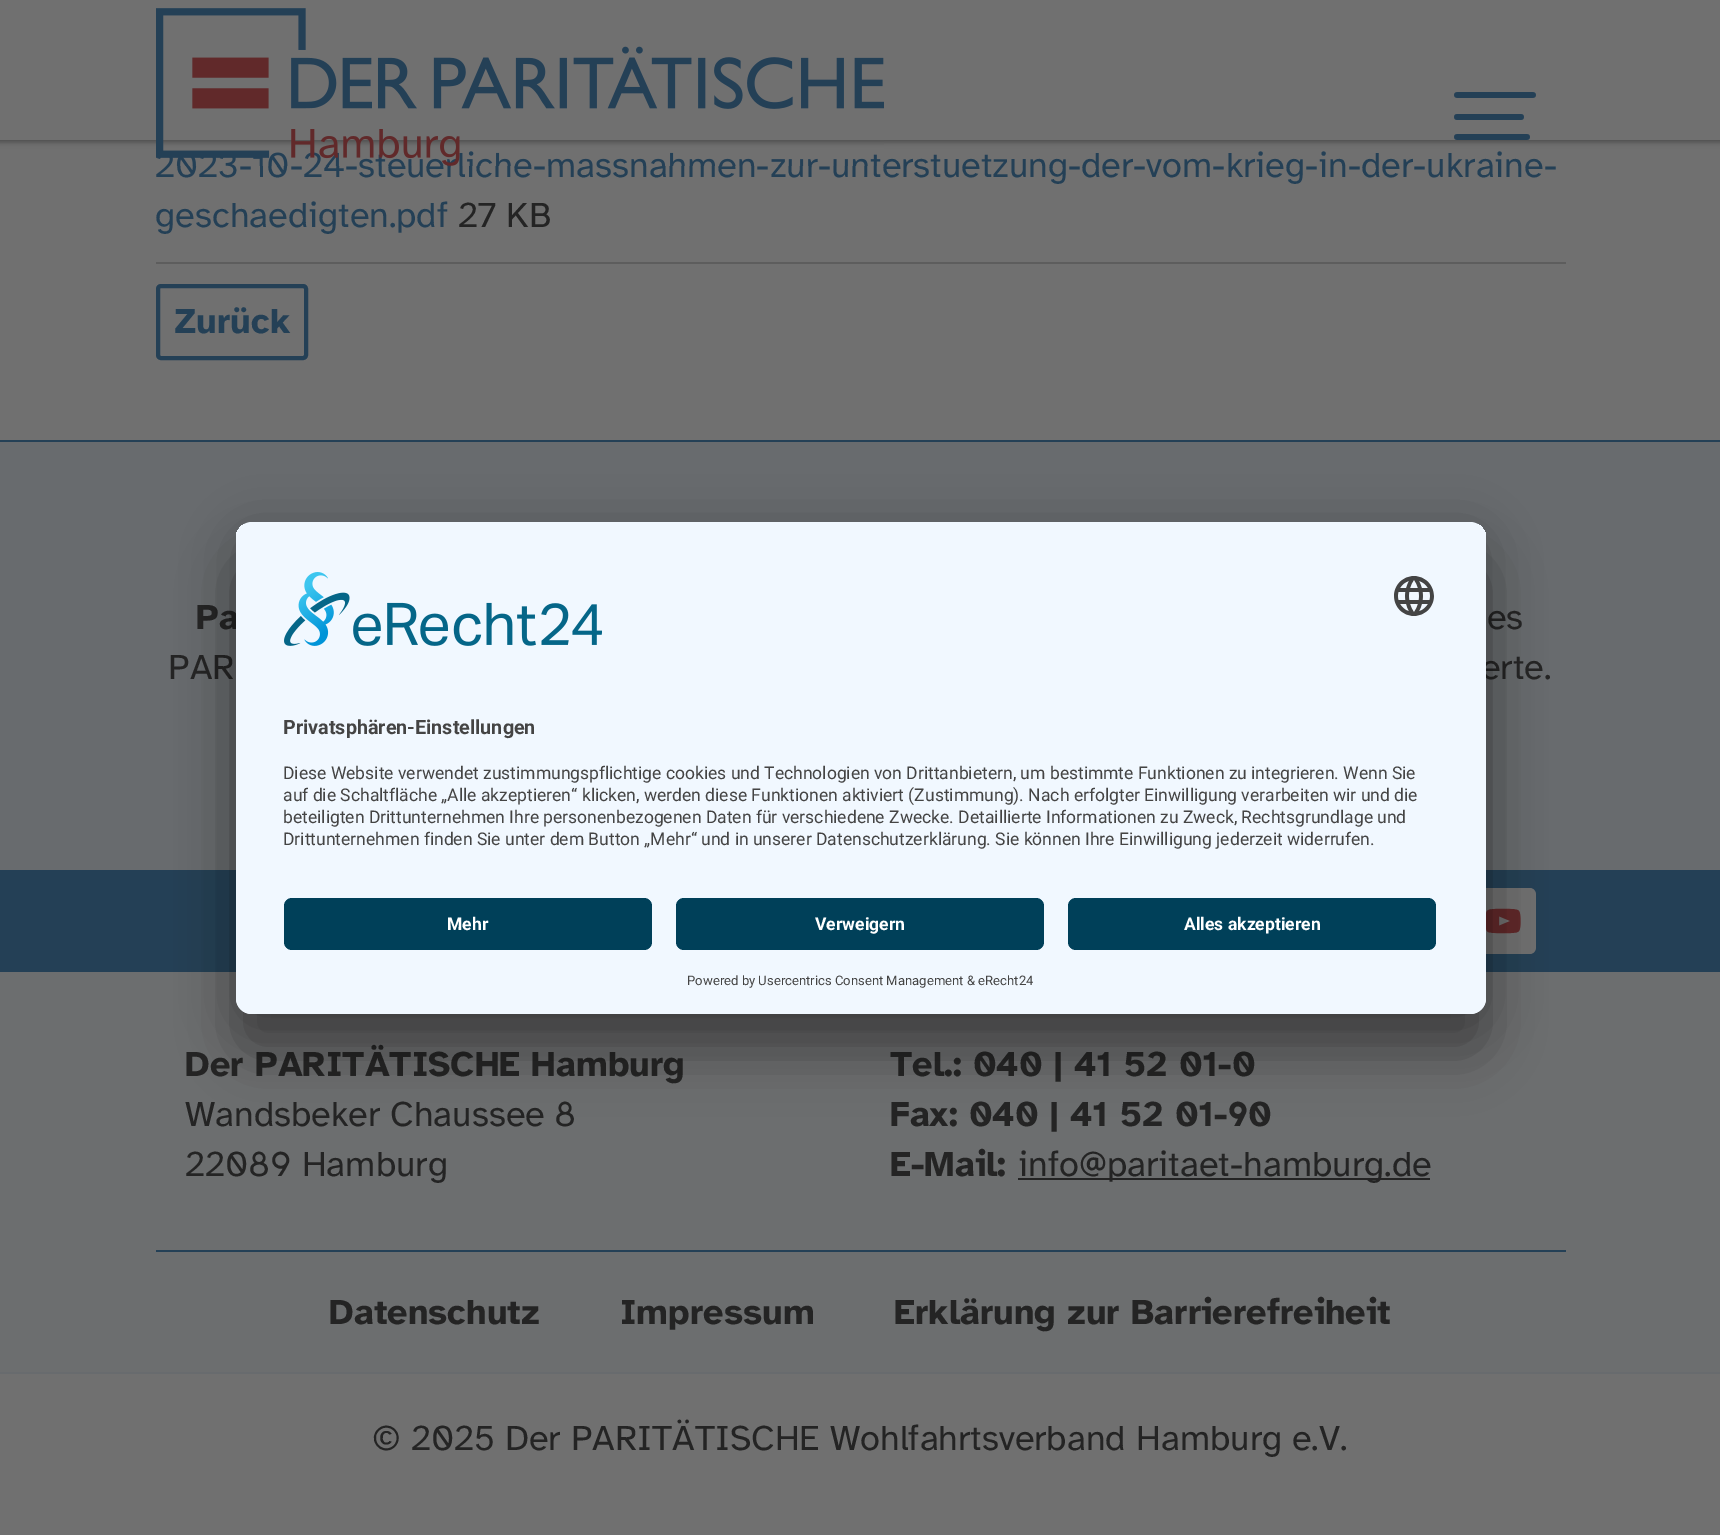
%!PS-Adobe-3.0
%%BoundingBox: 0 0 1720 1535
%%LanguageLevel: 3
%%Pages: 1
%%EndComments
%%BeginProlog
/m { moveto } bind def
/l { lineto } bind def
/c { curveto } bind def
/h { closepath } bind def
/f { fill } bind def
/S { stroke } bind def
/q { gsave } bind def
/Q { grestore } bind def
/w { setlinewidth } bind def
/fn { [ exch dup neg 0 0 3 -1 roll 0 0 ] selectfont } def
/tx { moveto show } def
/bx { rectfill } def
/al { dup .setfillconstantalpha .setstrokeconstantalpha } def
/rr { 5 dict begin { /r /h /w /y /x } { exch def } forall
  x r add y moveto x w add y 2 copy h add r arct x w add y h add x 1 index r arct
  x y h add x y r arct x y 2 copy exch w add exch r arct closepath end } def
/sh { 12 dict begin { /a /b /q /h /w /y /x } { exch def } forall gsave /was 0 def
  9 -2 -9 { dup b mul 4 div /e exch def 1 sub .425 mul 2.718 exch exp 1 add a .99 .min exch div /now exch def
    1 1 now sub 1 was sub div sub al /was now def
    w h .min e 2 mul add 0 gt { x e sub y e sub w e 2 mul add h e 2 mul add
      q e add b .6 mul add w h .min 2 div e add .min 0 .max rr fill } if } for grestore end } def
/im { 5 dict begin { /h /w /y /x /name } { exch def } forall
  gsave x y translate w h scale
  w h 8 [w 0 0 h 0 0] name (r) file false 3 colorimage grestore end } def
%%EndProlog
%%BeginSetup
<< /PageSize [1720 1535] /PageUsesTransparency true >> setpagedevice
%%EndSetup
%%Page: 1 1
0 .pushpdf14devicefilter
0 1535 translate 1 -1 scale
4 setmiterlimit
0.439 setgray
0 0 1720 1535 bx
0.141 setgray
-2 -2 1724 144 0 3 0.5 sh
0.439 setgray
0 0 1720 140 bx
/AtkinsonHyperlegible-Regular 36 fn
0.141 0.251 0.337 setrgbcolor
(2023-10-24-steuerliche-massnahmen-zur-unterstuetzung-der-vom-krieg-in-der-ukraine-) 155 177 tx
(image0.raw) 156 8 728 158 im
(image1.raw) 1454 92 82 48 im
(geschaedigten.pdf) 155 227 tx
0.141 setgray
(27 KB) 458 227 tx
0.365 setgray
156 262 1410 2 bx
0.141 0.251 0.337 setrgbcolor
4 w
158 286 148 72 3 rr S
/AtkinsonHyperlegible-Bold 36 fn
(Zurück) 174 333 tx
0.408 0.42 0.431 setrgbcolor
0 442 1720 428 bx
0.141 0.251 0.337 setrgbcolor
0 440 1720 2 bx
0.141 setgray
(Pa) 196 629 tx
/AtkinsonHyperlegible-Regular 36 fn
(es) 1487 629 tx
(PAR) 168 679 tx
(erte.) 1481 679 tx
0.424 0.431 0.435 setrgbcolor
0 972 1720 400 bx
0.141 0.251 0.337 setrgbcolor
0 870 1720 102 bx
(image2.raw) 1486 888 50 66 im
/AtkinsonHyperlegible-Bold 36 fn
0.141 setgray
(Der PARITÄTISCHE Hamburg) 185 1076 tx
/AtkinsonHyperlegible-Regular 36 fn
(Wandsbeker Chaussee 8) 185 1126 tx
(22089 Hamburg) 185 1176 tx
/AtkinsonHyperlegible-Bold 36 fn
(Tel.: 040 | 41 52 01-0) 890 1076 tx
(Fax: 040 | 41 52 01-90) 890 1126 tx
(E-Mail:) 890 1176 tx
1018 1178 412 2 bx
/AtkinsonHyperlegible-Regular 36 fn
(info@paritaet-hamburg.de) 1018 1176 tx
0.141 0.251 0.337 setrgbcolor
156 1250 1410 2 bx
/AtkinsonHyperlegible-Bold 36 fn
0.141 setgray
(Datenschutz) 329 1324 tx
(Impressum) 620 1324 tx
(Erklärung zur Barrierefreiheit) 894 1324 tx
0.408 0.42 0.431 setrgbcolor
0 1372 1720 2 bx
/AtkinsonHyperlegible-Regular 36 fn
0.141 setgray
(© 2025 Der PARITÄTISCHE Wohlfahrtsverband Hamburg e.V.) 372 1450 tx
0 setgray
236 562 1250 492 16 28 0.3 sh
236 532 1250 492 16 26 0.22 sh
0.945 0.973 1 setrgbcolor
236 522 1250 492 16 rr f
q
236 522 1250 492 16 rr clip newpath
252 522 m 1470 522 l 1479 522 1486 529 1486 538 c 1486 882 l 236 882 l 236 538 l 236 529 243 522 252 522 c h clip newpath
236 524 1250 358 bx
Q
(image3.raw) 284 572 318 74 im
(image4.raw) 1394 576 40 40 im
/Roboto-Bold 19.75 fn
0.267 setgray
(Privatsphären-Einstellungen) 283 734 tx
/Roboto-Regular 17.5 fn
(Diese Website verwendet zustimmungspflichtige cookies und Technologien von Drittanbietern, um bestimmte Funktionen zu integrieren. Wenn Sie) 283 779 tx
(auf die Schaltfläche „Alle akzeptieren“ klicken, werden diese Funktionen aktiviert \(Zustimmung\). Nach erfolgter Einwilligung verarbeiten wir und die) 283 801 tx
(beteiligten Drittunternehmen Ihre personenbezogenen Daten für verschiedene Zwecke. Detaillierte Informationen zu Zweck, Rechtsgrundlage und) 283 823 tx
(Drittunternehmen finden Sie unter dem Button „Mehr“ und in unserer Datenschutzerklärung. Sie können Ihre Einwilligung jederzeit widerrufen.) 283 845 tx
0.945 0.973 1 setrgbcolor
236 882 m 1486 882 l 1486 998 l 1486 1007 1479 1014 1470 1014 c 252 1014 l 243 1014 236 1007 236 998 c h f
0 0.251 0.349 setrgbcolor
284 898 368 52 8 rr f
/Roboto-Bold 17.5 fn
1 setgray
(Mehr) 447 930 tx
0 0.251 0.349 setrgbcolor
676 898 368 52 8 rr f
1 setgray
(Verweigern) 815 930 tx
0 0.251 0.349 setrgbcolor
1068 898 368 52 8 rr f
1 setgray
(Alles akzeptieren) 1184 930 tx
/Roboto-Regular 13.1 fn
0.267 setgray
(Powered by Usercentrics Consent Management) 687 985 tx
(& eRecht24) 967 985 tx
.poppdf14devicefilter showpage
%%EOF
